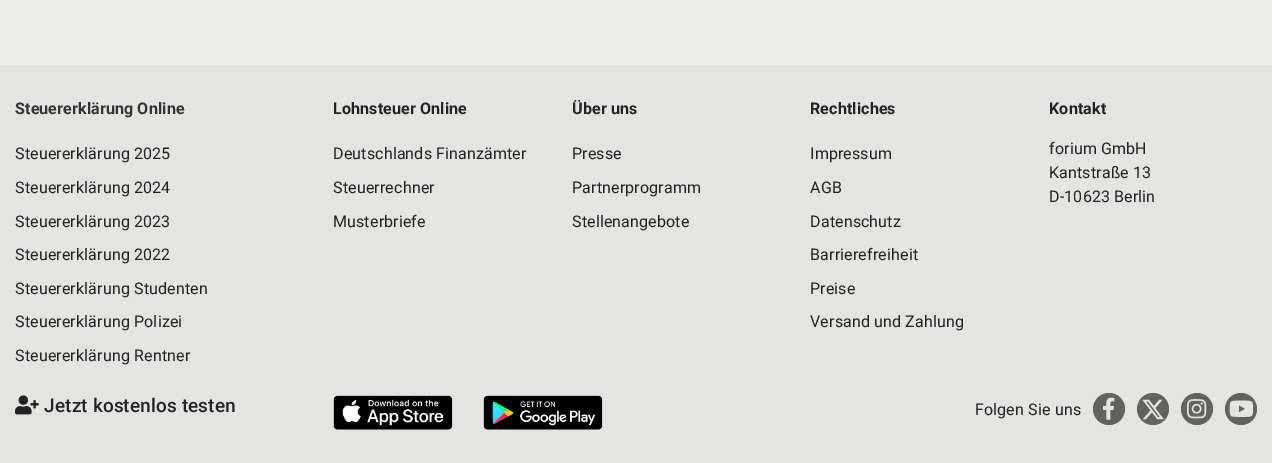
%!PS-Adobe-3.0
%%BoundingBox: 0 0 1272 463
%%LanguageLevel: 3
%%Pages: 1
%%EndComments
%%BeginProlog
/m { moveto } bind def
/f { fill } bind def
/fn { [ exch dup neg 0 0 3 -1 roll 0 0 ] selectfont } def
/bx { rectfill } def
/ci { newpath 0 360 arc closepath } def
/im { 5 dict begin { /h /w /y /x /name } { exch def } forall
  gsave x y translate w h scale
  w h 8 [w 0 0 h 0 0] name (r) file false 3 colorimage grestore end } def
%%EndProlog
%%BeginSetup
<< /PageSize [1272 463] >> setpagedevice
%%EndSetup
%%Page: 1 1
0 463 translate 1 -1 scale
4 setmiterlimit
0.929 0.929 0.925 setrgbcolor
0 0 1272 463 bx
0.894 0.894 0.886 setrgbcolor
0 65 1272 398 bx
/Roboto-Bold 16 fn
0.2 setgray
15 114 m 0.15 0 (Steuererklärung Online) ashow
/Roboto-Regular 16 fn
0.133 setgray
15 159 m 0.15 0 (Steuererklärung 2025) ashow
15 193 m 0.15 0 (Steuererklärung 2024) ashow
15 227 m 0.15 0 (Steuererklärung 2023) ashow
15 260 m 0.15 0 (Steuererklärung 2022) ashow
15 294 m 0.15 0 (Steuererklärung Studenten) ashow
15 327 m 0.15 0 (Steuererklärung Polizei) ashow
15 361 m 0.15 0 (Steuererklärung Rentner) ashow
(image0.raw) 15 395 24 20 im
/Roboto-Medium 19 fn
44 412 m 0.15 0 (Jetzt kostenlos testen) ashow
/Roboto-Bold 16 fn
333 114 m 0.15 0 (Lohnsteuer Online) ashow
/Roboto-Regular 16 fn
333 159 m 0.15 0 (Deutschlands Finanzämter) ashow
333 193 m 0.15 0 (Steuerrechner) ashow
333 227 m 0.15 0 (Musterbriefe) ashow
/Roboto-Bold 16 fn
572 114 m 0.15 0 (Über uns) ashow
/Roboto-Regular 16 fn
572 159 m 0.15 0 (Presse) ashow
572 193 m 0.15 0 (Partnerprogramm) ashow
572 227 m 0.15 0 (Stellenangebote) ashow
/Roboto-Bold 16 fn
810 114 m 0.15 0 (Rechtliches) ashow
/Roboto-Regular 16 fn
810 159 m 0.15 0 (Impressum) ashow
810 193 m 0.15 0 (AGB) ashow
810 227 m 0.15 0 (Datenschutz) ashow
810 260 m 0.15 0 (Barrierefreiheit) ashow
810 294 m 0.15 0 (Preise) ashow
810 327 m 0.15 0 (Versand und Zahlung) ashow
/Roboto-Bold 16 fn
1049 114 m 0.15 0 (Kontakt) ashow
/Roboto-Regular 16 fn
1049 154 m 0.15 0 (forium GmbH) ashow
1049 178 m 0.15 0 (Kantstraße 13) ashow
1049 202 m 0.15 0 (D-10623 Berlin) ashow
(image1.raw) 333 395 120 35 im
(image2.raw) 483 395 120 35 im
975 415 m 0.15 0 (Folgen Sie uns) ashow
0.384 0.388 0.373 setrgbcolor
1109 409 16 ci f
(image3.raw) 1103 397 12 23 im
1153 409 16 ci f
(image4.raw) 1142 399 22 21 im
1197 409 16 ci f
(image5.raw) 1187 399 20 20 im
1241 409 16 ci f
(image6.raw) 1229 400 25 17 im
showpage
%%EOF
